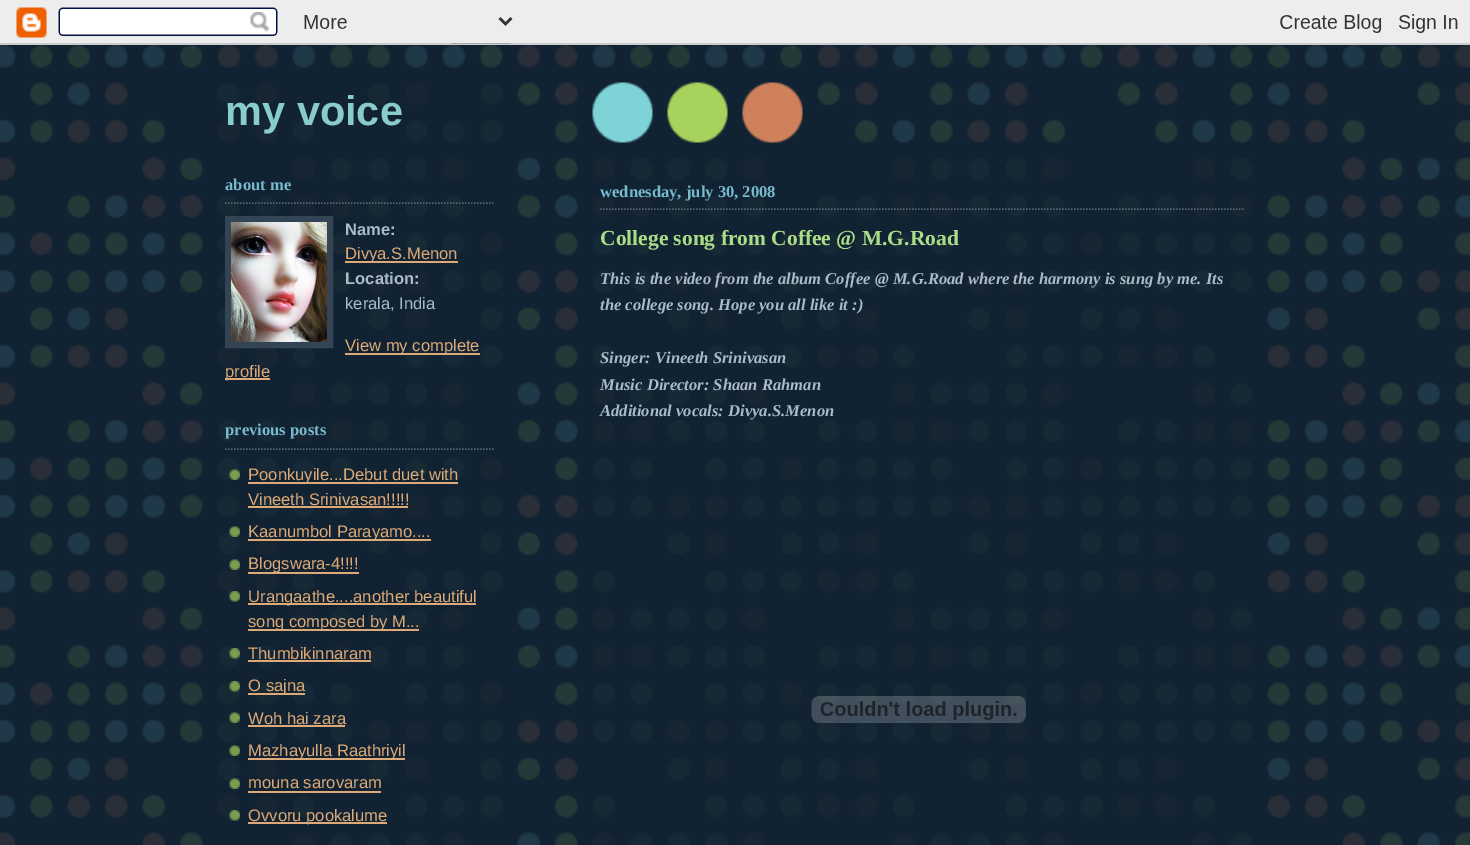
%!PS-Adobe-3.0
%%BoundingBox: 0 0 1470 845
%%LanguageLevel: 3
%%Pages: 1
%%EndComments
%%BeginProlog
/m { moveto } bind def
/l { lineto } bind def
/S { stroke } bind def
/w { setlinewidth } bind def
/fn { [ exch dup neg 0 0 3 -1 roll 0 0 ] selectfont } def
/tx { moveto show } def
/bx { rectfill } def
/im { 5 dict begin { /h /w /y /x /name } { exch def } forall
  gsave x y translate w h scale
  w h 8 [w 0 0 h 0 0] name (r) file false 3 colorimage grestore end } def
%%EndProlog
%%BeginSetup
<< /PageSize [1470 845] >> setpagedevice
%%EndSetup
%%Page: 1 1
0 845 translate 1 -1 scale
4 setmiterlimit
1 setgray
0 0 1470 845 bx
(image0.raw) 0 43 1470 802 im
(image1.raw) 0 0 1470 45 im
(image2.raw) 592 82 211 61 im
(image3.raw) 217 82 286 763 im
/LiberationSans-Bold 41.5 fn
0.533 0.8 0.8 setrgbcolor
(my voice) 225 125 tx
0.333 0.4 0.467 setrgbcolor
1.5 w
[1.5 1.5] 0 setdash
225 203 m 495 203 l S
/LiberationSerif-Bold 16.6 fn
0.467 0.733 0.8 setrgbcolor
(about me) 225 190 tx
0.2 0.267 0.333 setrgbcolor
6 w
[] 0 setdash
228 219 102 126 rectstroke
(image4.raw) 231 222 96 120 im
/LiberationSans-Bold 16.6 fn
0.667 0.733 0.8 setrgbcolor
(Name:) 345 235 tx
0.867 0.667 0.467 setrgbcolor
345 261 113 2 bx
/LiberationSans-Regular 16.6 fn
(Divya.S.Menon) 345 259 tx
/LiberationSans-Bold 16.6 fn
0.667 0.733 0.8 setrgbcolor
(Location:) 345 284 tx
/LiberationSans-Regular 16.6 fn
(kerala, India) 345 309 tx
0.867 0.667 0.467 setrgbcolor
345 353 135 2 bx
(View my complete) 345 351 tx
225 378 45 2 bx
(profile) 225 377 tx
0.333 0.4 0.467 setrgbcolor
1.5 w
[1.5 1.5] 0 setdash
225 449 m 495 449 l S
/LiberationSerif-Bold 16.6 fn
0.467 0.733 0.8 setrgbcolor
(previous posts) 225 435 tx
(image5.raw) 229 469 11 11 im
0.867 0.667 0.467 setrgbcolor
248 482 210 2 bx
/LiberationSans-Regular 16.6 fn
(Poonkuyile...Debut duet with) 248 480 tx
(Vineeth Srinivasan!!!!!) 248 505 tx
248 506 160 2 bx
(image6.raw) 229 526 11 11 im
248 539 183 2 bx
(Kaanumbol Parayamo....) 248 537 tx
(image7.raw) 229 559 11 11 im
248 572 111 2 bx
(Blogswara-4!!!!) 248 569 tx
(image8.raw) 229 591 11 11 im
248 603 228 2 bx
(Urangaathe....another beautiful) 248 602 tx
248 629 171 2 bx
(song composed by M...) 248 627 tx
(image9.raw) 229 648 11 11 im
(Thumbikinnaram) 248 659 tx
248 660 123 2 bx
(image10.raw) 229 681 11 11 im
248 693 57 2 bx
(O sajna) 248 691 tx
(image11.raw) 229 712 11 11 im
(Woh hai zara) 248 724 tx
248 725 97 2 bx
(image7.raw) 229 745 11 11 im
248 758 157 2 bx
(Mazhayulla Raathriyil) 248 756 tx
(image12.raw) 229 778 11 11 im
(mouna sarovaram) 248 788 tx
248 791 133 2 bx
(image13.raw) 229 810 11 11 im
248 822 139 2 bx
(Ovvoru pookalume) 248 821 tx
(image14.raw) 592 157 661 688 im
0.333 0.4 0.467 setrgbcolor
600 209 m 1245 209 l S
/LiberationSerif-Bold 16.6 fn
0.467 0.733 0.8 setrgbcolor
(wednesday, july 30, 2008) 600 197 tx
/LiberationSerif-Bold 21.5 fn
0.667 0.867 0.533 setrgbcolor
(College song from Coffee @ M.G.Road) 600 245 tx
/LiberationSerif-BoldItalic 16.6 fn
0.667 0.733 0.8 setrgbcolor
(This is the video from the album Coffee @ M.G.Road where the harmony is sung by me. Its) 600 284 tx
(the college song. Hope you all like it :\)) 600 310 tx
(Singer: Vineeth Srinivasan) 600 363 tx
(Music Director: Shaan Rahman) 600 390 tx
(Additional vocals: Divya.S.Menon) 600 416 tx
(image15.raw) 811 696 215 27 im
showpage
%%EOF
